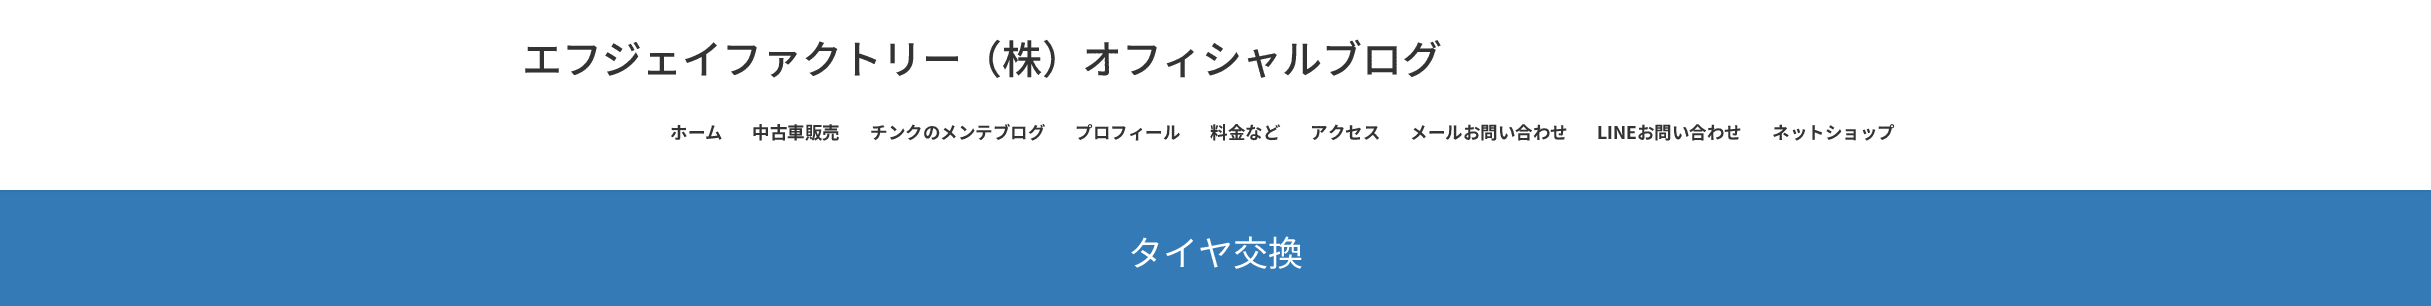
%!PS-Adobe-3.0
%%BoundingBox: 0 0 2431 306
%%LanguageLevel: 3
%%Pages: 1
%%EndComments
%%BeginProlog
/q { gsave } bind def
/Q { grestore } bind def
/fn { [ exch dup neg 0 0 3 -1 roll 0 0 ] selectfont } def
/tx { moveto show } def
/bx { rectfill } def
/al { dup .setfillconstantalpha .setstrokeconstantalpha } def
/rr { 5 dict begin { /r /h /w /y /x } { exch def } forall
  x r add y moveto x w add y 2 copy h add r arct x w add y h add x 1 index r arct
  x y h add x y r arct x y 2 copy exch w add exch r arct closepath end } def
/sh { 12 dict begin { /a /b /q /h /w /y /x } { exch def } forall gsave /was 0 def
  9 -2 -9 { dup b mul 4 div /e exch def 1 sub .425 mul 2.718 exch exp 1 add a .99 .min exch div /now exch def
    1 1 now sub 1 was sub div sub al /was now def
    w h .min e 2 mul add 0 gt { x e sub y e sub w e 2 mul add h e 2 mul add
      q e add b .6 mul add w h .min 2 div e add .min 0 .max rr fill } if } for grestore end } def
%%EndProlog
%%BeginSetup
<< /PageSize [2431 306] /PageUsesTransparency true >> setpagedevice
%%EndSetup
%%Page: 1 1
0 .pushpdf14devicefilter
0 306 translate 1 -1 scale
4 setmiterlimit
1 setgray
0 0 2431 306 bx
0.2 0.478 0.718 setrgbcolor
0 190 2431 116 bx
q
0 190 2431 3 rectclip
0 setgray
0 1 2431 190 0 2 0.1 sh
Q
/NotoSansJP-Medium 40 fn
0.2 setgray
(エフジェイファクトリー（株）オフィシャルブログ) 522 74 tx
/NotoSansJP-Bold 17.5 fn
(ホーム) 670 139 tx
(中古車販売) 752 139 tx
(チンクのメンテブログ) 870 139 tx
(プロフィール) 1075 139 tx
(料金など) 1210 139 tx
(アクセス) 1310 139 tx
(メールお問い合わせ) 1410 139 tx
(LINEお問い合わせ) 1597 139 tx
(ネットショップ) 1772 139 tx
/NotoSansJP-Regular 35 fn
1 setgray
(タイヤ交換) 1128 266 tx
.poppdf14devicefilter showpage
%%EOF
